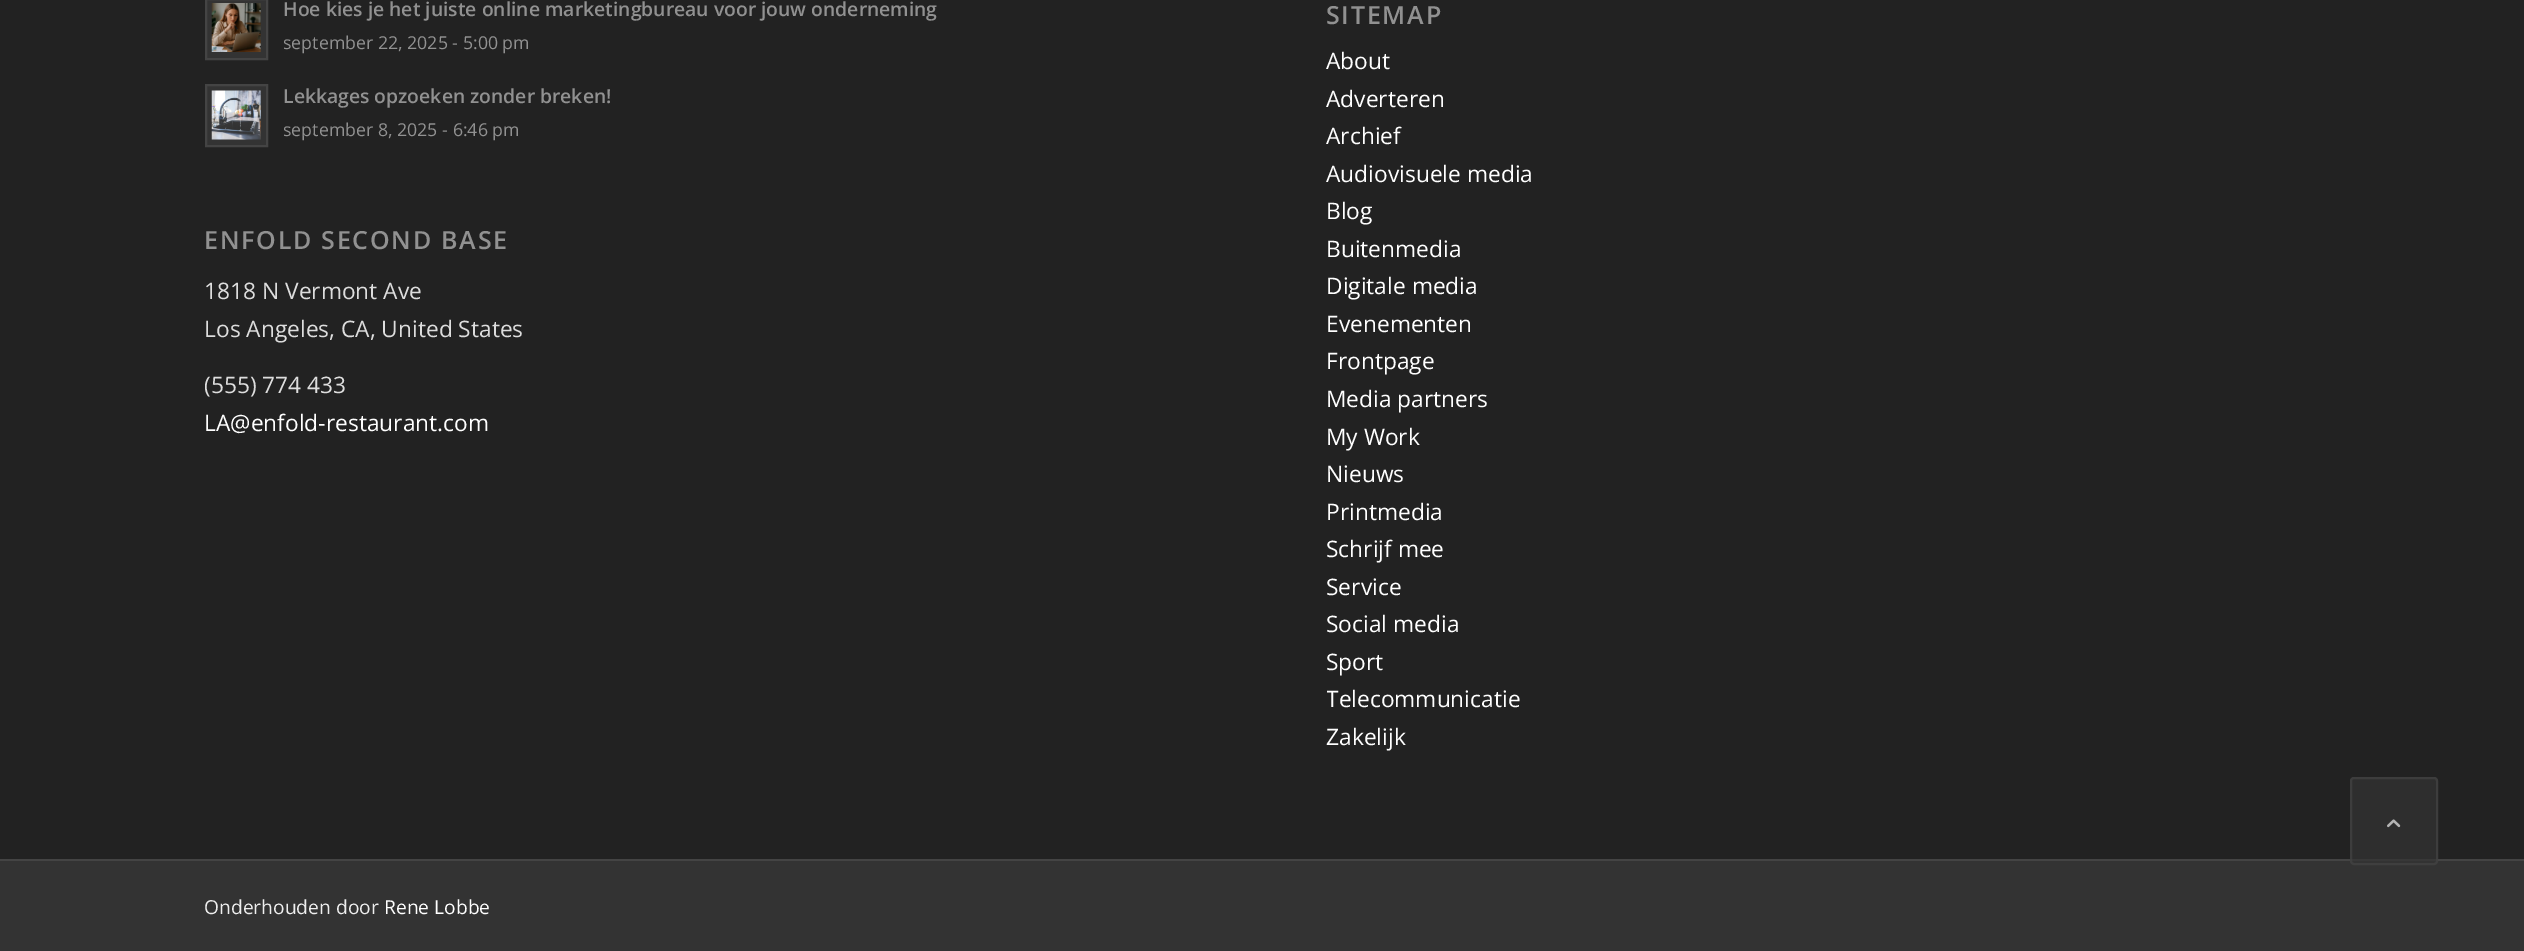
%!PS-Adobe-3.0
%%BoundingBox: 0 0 2524 951
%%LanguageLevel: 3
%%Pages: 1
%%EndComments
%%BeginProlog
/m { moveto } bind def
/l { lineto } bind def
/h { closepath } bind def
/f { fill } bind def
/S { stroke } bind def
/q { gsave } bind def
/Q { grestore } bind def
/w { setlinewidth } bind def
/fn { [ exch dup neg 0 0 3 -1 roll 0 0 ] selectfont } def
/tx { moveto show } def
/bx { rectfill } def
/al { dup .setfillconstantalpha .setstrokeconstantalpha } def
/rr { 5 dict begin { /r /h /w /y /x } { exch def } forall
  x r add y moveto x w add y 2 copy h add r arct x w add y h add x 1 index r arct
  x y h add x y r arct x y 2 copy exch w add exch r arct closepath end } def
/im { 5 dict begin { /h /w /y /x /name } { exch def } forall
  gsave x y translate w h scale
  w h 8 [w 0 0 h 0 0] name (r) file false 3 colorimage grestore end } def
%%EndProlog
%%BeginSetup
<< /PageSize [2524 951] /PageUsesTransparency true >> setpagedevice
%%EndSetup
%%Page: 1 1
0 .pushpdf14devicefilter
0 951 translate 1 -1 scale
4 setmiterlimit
0.133 setgray
0 0 2524 951 bx
0.2 setgray
206 -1 m 267 -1 l 267 59 l 206 59 l h q f Q
0.267 setgray
2 w
S
(image0.raw) 211 3 50 49 im
/OpenSans-SemiBold 19.35 fn
0.569 setgray
(Hoe kies je het juiste online marketingbureau voor jouw onderneming) 283 16 tx
q
284 0 915 60 rectclip
/OpenSans-Regular 17.75 fn
(september 22, 2025 - 5:00 pm) 283 49 tx
Q
0.2 setgray
206 85 m 267 85 l 267 146 l 206 146 l h q f Q
0.267 setgray
S
(image1.raw) 211 90 50 50 im
0.569 setgray
(Lekkages opzoeken zonder breken!) 283 103 tx
q
284 81 915 66 rectclip
/OpenSans-Regular 17.75 fn
(september 8, 2025 - 6:46 pm) 283 136 tx
Q
/OpenSans-SemiBold 25 fn
204 249 m 1.75 0 (ENFOLD SECOND BASE) ashow
/OpenSans-Regular 22.75 fn
0.867 setgray
(1818 N Vermont Ave) 204 299 tx
(Los Angeles, CA, United States) 204 337 tx
q
205 205 994 257 rectclip
(\(555\) 774 433) 204 393 tx
Q
1 setgray
(LA@enfold-restaurant.com) 204 431 tx
/OpenSans-SemiBold 25 fn
0.569 setgray
1326 24 m 1.75 0 (SITEMAP) ashow
/OpenSans-Regular 22.75 fn
1 setgray
(About) 1326 69 tx
(Adverteren) 1326 107 tx
(Archief) 1326 144 tx
(Audiovisuele media) 1326 182 tx
(Blog) 1326 219 tx
(Buitenmedia) 1326 257 tx
(Digitale media) 1326 294 tx
(Evenementen) 1326 332 tx
(Frontpage) 1326 369 tx
(Media partners) 1326 407 tx
(My Work) 1326 445 tx
(Nieuws) 1326 482 tx
(Printmedia) 1326 520 tx
(Schrijf mee) 1326 557 tx
(Service) 1326 595 tx
(Social media) 1326 632 tx
(Sport) 1326 670 tx
q
1327 0 994 756 rectclip
(Telecommunicatie) 1326 707 tx
Q
(Zakelijk) 1326 745 tx
0.2 setgray
0 861 2524 90 bx
0.267 setgray
0 859 2524 2 bx
/OpenSans-Regular 19.25 fn
0.933 setgray
(Onderhouden door) 204 914 tx
1 setgray
(Rene Lobbe) 384 914 tx
0.7 al
0.2 setgray
2350 777 88 88 4 rr f
0.267 setgray
2351 778 86 86 3 rr S
1 al
(image2.raw) 2387 819 14 9 im
.poppdf14devicefilter showpage
%%EOF
